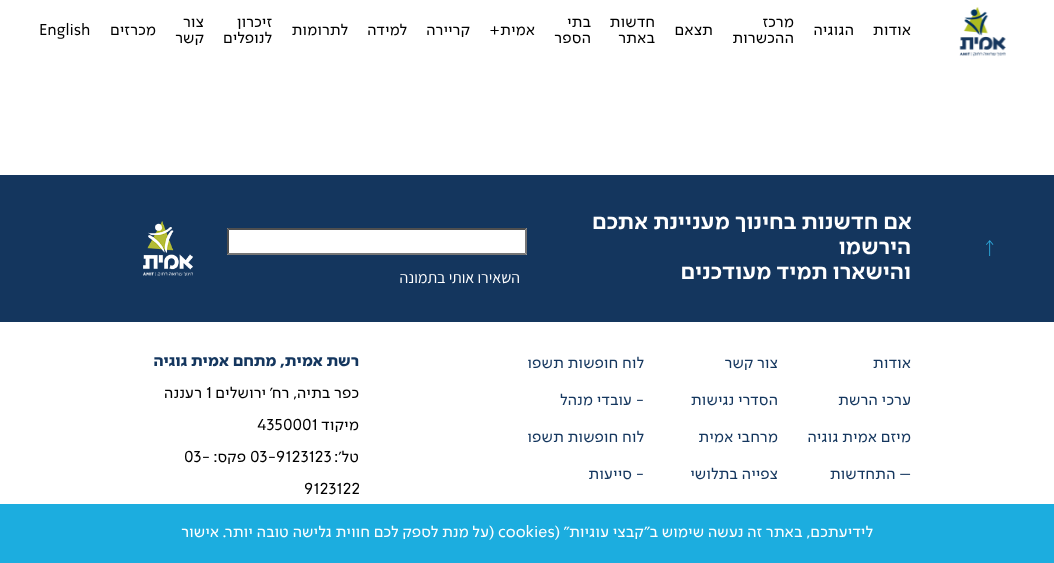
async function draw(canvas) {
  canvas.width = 1054;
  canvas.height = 563;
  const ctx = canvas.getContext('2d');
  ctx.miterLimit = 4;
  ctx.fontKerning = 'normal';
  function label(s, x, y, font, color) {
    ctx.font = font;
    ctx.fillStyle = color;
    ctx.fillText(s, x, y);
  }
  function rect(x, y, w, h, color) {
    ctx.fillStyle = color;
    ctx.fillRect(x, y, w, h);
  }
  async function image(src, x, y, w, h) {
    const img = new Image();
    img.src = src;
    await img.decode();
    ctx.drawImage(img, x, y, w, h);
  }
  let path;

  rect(0, 0, 1054, 563, '#fff');
  await image('assets/img1.png', 959, 7, 47, 50);
  ctx.direction = 'rtl';
  label('אודות', 911, 35, '16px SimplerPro', '#000');
  label('הגוגיה', 854, 35, '16px SimplerPro', '#000');
  label('מרכז', 794, 27, '16px SimplerPro', '#000');
  label('ההכשרות', 794, 43, '16px SimplerPro', '#000');
  label('תצאם', 713, 35, '16px SimplerPro', '#000');
  label('חדשות', 655, 27, '16px SimplerPro', '#000');
  label('באתר', 655, 43, '16px SimplerPro', '#000');
  label('בתי', 591, 27, '16px SimplerPro', '#000');
  label('הספר', 591, 43, '16px SimplerPro', '#000');
  label('אמית+', 535, 35, '16px SimplerPro', '#000');
  label('קריירה', 470, 35, '16px SimplerPro', '#000');
  label('למידה', 407, 35, '16px SimplerPro', '#000');
  label('לתרומות', 348, 35, '16px SimplerPro', '#000');
  label('זיכרון', 272, 27, '16px SimplerPro', '#000');
  label('לנופלים', 272, 43, '16px SimplerPro', '#000');
  label('צור', 204, 27, '16px SimplerPro', '#000');
  label('קשר', 204, 43, '16px SimplerPro', '#000');
  label('מכרזים', 156, 35, '16px SimplerPro', '#000');
  ctx.direction = 'ltr';
  label('English', 39, 35, '16px SimplerPro', '#000');
  rect(0, 175, 1054, 147, '#14365e');
  await image('assets/img2.png', 986, 240, 8, 16);
  ctx.direction = 'rtl';
  label('אם חדשנות בחינוך מעניינת אתכם', 912, 229, 'bold 22.75px SimplerPro', '#fff');
  label('הירשמו', 911, 254, 'bold 22.75px SimplerPro', '#fff');
  label('והישארו תמיד מעודכנים', 911, 279, 'bold 22.75px SimplerPro', '#fff');
  await image('assets/img3.png', 143, 221, 50, 55);
  rect(227, 228, 300, 27, '#fff');
  ctx.fillStyle = '#4f4f4f';
  path = new Path2D('M227 228H527L525 230H229Z');
  ctx.fill(path);
  ctx.fillStyle = '#767676';
  path = new Path2D('M527 228V255L525 253V230Z');
  ctx.fill(path);
  path = new Path2D('M527 255H227L229 253H525Z');
  ctx.fill(path);
  ctx.fillStyle = '#4f4f4f';
  path = new Path2D('M227 255V228L229 230V253Z');
  ctx.fill(path);
  label('השאירו אותי בתמונה', 520, 283, '16px Assistant', '#fff');
  label('אודות', 911, 368, '16px SimplerPro', '#14365e');
  label('צור קשר', 778, 368, '16px SimplerPro', '#14365e');
  label('לוח חופשות תשפו', 644, 368, '16px SimplerPro', '#14365e');
  label('- עובדי מנהל', 644, 405, '16px SimplerPro', '#14365e');
  label('ערכי הרשת', 911, 405, '16px SimplerPro', '#14365e');
  label('הסדרי נגישות', 778, 405, '16px SimplerPro', '#14365e');
  label('מיזם אמית גוגיה', 911, 442, '16px SimplerPro', '#14365e');
  label('– התחדשות', 911, 479, '16px SimplerPro', '#14365e');
  label('מרחבי אמית', 778, 442, '16px SimplerPro', '#14365e');
  label('לוח חופשות תשפו', 644, 442, '16px SimplerPro', '#14365e');
  label('- סייעות', 644, 479, '16px SimplerPro', '#14365e');
  label('צפייה בתלושי', 778, 479, '16px SimplerPro', '#14365e');
  label('רשת אמית, מתחם אמית גוגיה', 359, 366, '900 16px SimplerPro', '#14365e');
  label('כפר בתיה, רח\' ירושלים', 359, 398, '16px SimplerPro', '#000');
  ctx.direction = 'ltr';
  label('1', 206, 398, '16px SimplerPro', '#000');
  ctx.direction = 'rtl';
  label('רעננה', 202, 398, '16px SimplerPro', '#000');
  label('מיקוד', 359, 430, '16px SimplerPro', '#000');
  ctx.direction = 'ltr';
  label('4350001', 257, 430, '16px SimplerPro', '#000');
  ctx.direction = 'rtl';
  label('טל\':', 359, 462, '16px SimplerPro', '#000');
  ctx.direction = 'ltr';
  label('03-9123123', 250, 462, '16px SimplerPro', '#000');
  ctx.direction = 'rtl';
  label('פקס:', 246, 462, '16px SimplerPro', '#000');
  ctx.direction = 'ltr';
  label('03-', 184, 462, '16px SimplerPro', '#000');
  label('9123122', 304, 494, '16px SimplerPro', '#000');
  rect(0, 504, 1054, 59, '#1caddf');
  ctx.direction = 'rtl';
  label('לידיעתכם, באתר זה נעשה שימוש ב"קבצי עוגיות" (', 873, 537, '16px SimplerPro', '#fff');
  ctx.direction = 'ltr';
  label(') cookies', 489, 537, '16px SimplerPro', '#fff');
  ctx.direction = 'rtl';
  label('על מנת לספק לכם חווית גלישה טובה יותר.', 489, 537, '16px SimplerPro', '#fff');
  label('אישור', 219, 537, '16px SimplerPro', '#fff');
}

draw(document.querySelector('canvas'));
